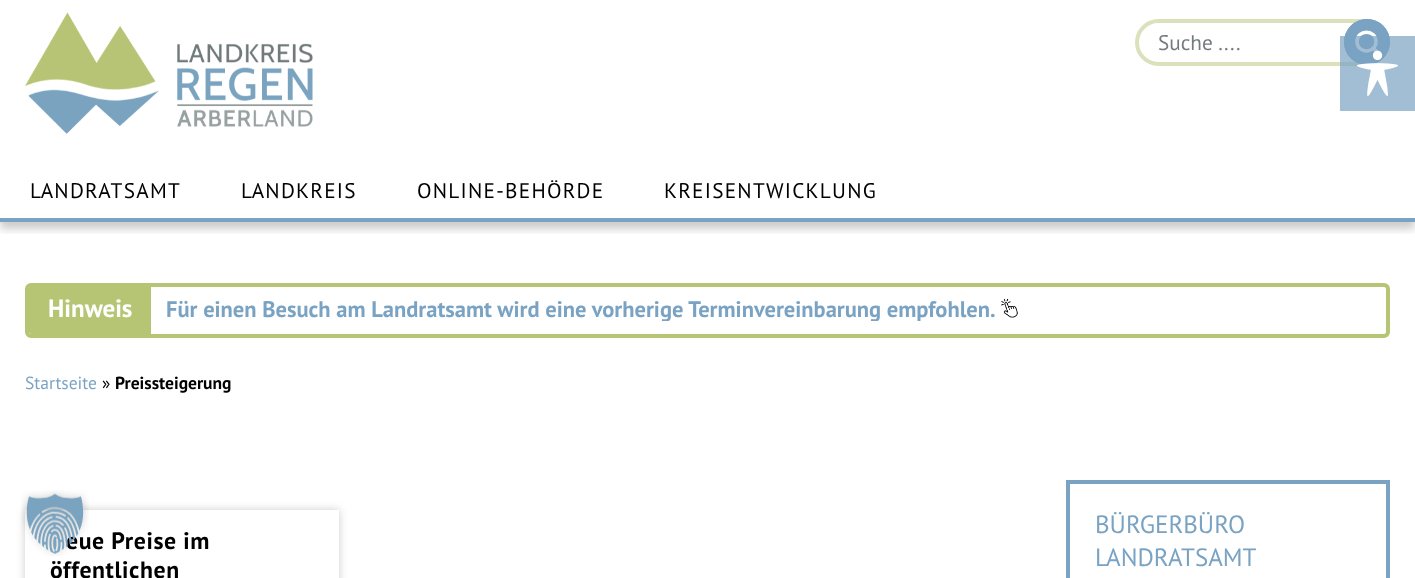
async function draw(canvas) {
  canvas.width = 1415;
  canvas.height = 578;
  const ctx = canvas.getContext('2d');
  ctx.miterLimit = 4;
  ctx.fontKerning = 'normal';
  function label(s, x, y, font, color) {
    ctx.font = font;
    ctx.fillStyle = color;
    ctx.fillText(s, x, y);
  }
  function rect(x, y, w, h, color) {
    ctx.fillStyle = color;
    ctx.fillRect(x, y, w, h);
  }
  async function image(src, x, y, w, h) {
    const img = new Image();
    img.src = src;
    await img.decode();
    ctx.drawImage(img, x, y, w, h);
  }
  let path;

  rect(0, 0, 1415, 578, '#fff');
  ctx.save();
  ctx.beginPath();
  ctx.rect(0, 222, 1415, 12);
  ctx.clip();
  ctx.fillStyle = '#00000033';
  ctx.filter = 'blur(4px)';
  ctx.beginPath();
  ctx.rect(0, 141, 1415, 88);
  ctx.fill();
  ctx.filter = 'none';
  ctx.restore();
  await image('assets/img1.png', 25, 12, 288, 122);
  ctx.beginPath();
  ctx.roundRect(1137, 21, 250, 43, 21.5);
  ctx.strokeStyle = '#dbe2bb';
  ctx.lineWidth = 4;
  ctx.stroke();
  label('Suche ....', 1158, 50, '21.25px PT Sans', '#737b7e');
  ctx.fillStyle = '#7aa3c3';
  ctx.beginPath();
  ctx.arc(1367, 42, 23, 0, 2 * Math.PI);
  ctx.fill();
  path = new Path2D('M1376 41.5C1376 54 1357 54 1357 41.5C1357 29 1376 29 1376 41.5ZM1378 53L1373 48');
  ctx.strokeStyle = '#fff';
  ctx.lineWidth = 3.5;
  ctx.lineCap = 'round';
  ctx.lineJoin = 'round';
  ctx.stroke(path);
  ctx.beginPath();
  ctx.arc(1367, 42, 20.5, 0, 2 * Math.PI);
  ctx.strokeStyle = '#7aa3c3';
  ctx.lineWidth = 5;
  ctx.stroke();
  rect(0, 218, 1415, 4, '#7aa3c3');
  ctx.letterSpacing = '1.25px';
  label('LANDRATSAMT', 30, 198, '21.25px PT Sans', '#000');
  label('LANDKREIS', 241, 198, '21.25px PT Sans', '#000');
  label('ONLINE-BEHÖRDE', 417, 198, '21.25px PT Sans', '#000');
  label('KREISENTWICKLUNG', 664, 198, '21.25px PT Sans', '#000');
  ctx.beginPath();
  ctx.roundRect(27, 285, 1361, 51, 4);
  ctx.strokeStyle = '#b6c574';
  ctx.lineWidth = 4;
  ctx.lineJoin = 'miter';
  ctx.stroke();
  ctx.fillStyle = '#b6c574';
  ctx.beginPath();
  ctx.roundRect(29, 286, 122, 48, [2.5, 0, 0, 2.5]);
  ctx.fill();
  ctx.letterSpacing = '0px';
  label('Hinweis', 48, 317, 'bold 25px PT Sans', '#fff');
  ctx.save();
  ctx.beginPath();
  ctx.rect(166, 299, 1195, 22);
  ctx.clip();
  label('Für einen Besuch am Landratsamt wird eine vorherige Terminvereinbarung empfohlen.', 166, 317, 'bold 22.5px PT Sans', '#7aa3c3');
  ctx.restore();
  await image('assets/img2.png', 1001, 298, 17, 20);
  label('Startseite', 25, 389, '17.5px PT Sans', '#7aa3c3');
  label('»', 102, 389, '17.5px PT Sans', '#000');
  label('Preissteigerung', 115, 389, 'bold 17.5px PT Sans', '#000');
  ctx.save();
  path = new Path2D('M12 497H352V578H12ZM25 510H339V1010H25Z');
  ctx.clip(path, 'evenodd');
  ctx.fillStyle = '#00000033';
  ctx.filter = 'blur(4px)';
  ctx.beginPath();
  ctx.rect(25, 510, 314, 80);
  ctx.fill();
  ctx.filter = 'none';
  ctx.restore();
  ctx.letterSpacing = '0.6px';
  label('eue Preise im', 66, 549, 'bold 23.75px PT Sans', '#000');
  label('öffentlichen', 50, 578, 'bold 23.75px PT Sans', '#000');
  ctx.strokeStyle = '#7aa3c3';
  ctx.strokeRect(1068, 482, 320, 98);
  ctx.letterSpacing = '0px';
  label('BÜRGERBÜRO', 1095, 533, '25px PT Sans', '#7aa3c3');
  label('LANDRATSAMT', 1095, 566, '25px PT Sans', '#7aa3c3');
  rect(1340, 36, 75, 75, '#7aa3c3b3');
  await image('assets/img3.png', 1357, 50, 41, 46);
  await image('assets/img4.png', 21, 490, 68, 66);
}

draw(document.querySelector('canvas'));
